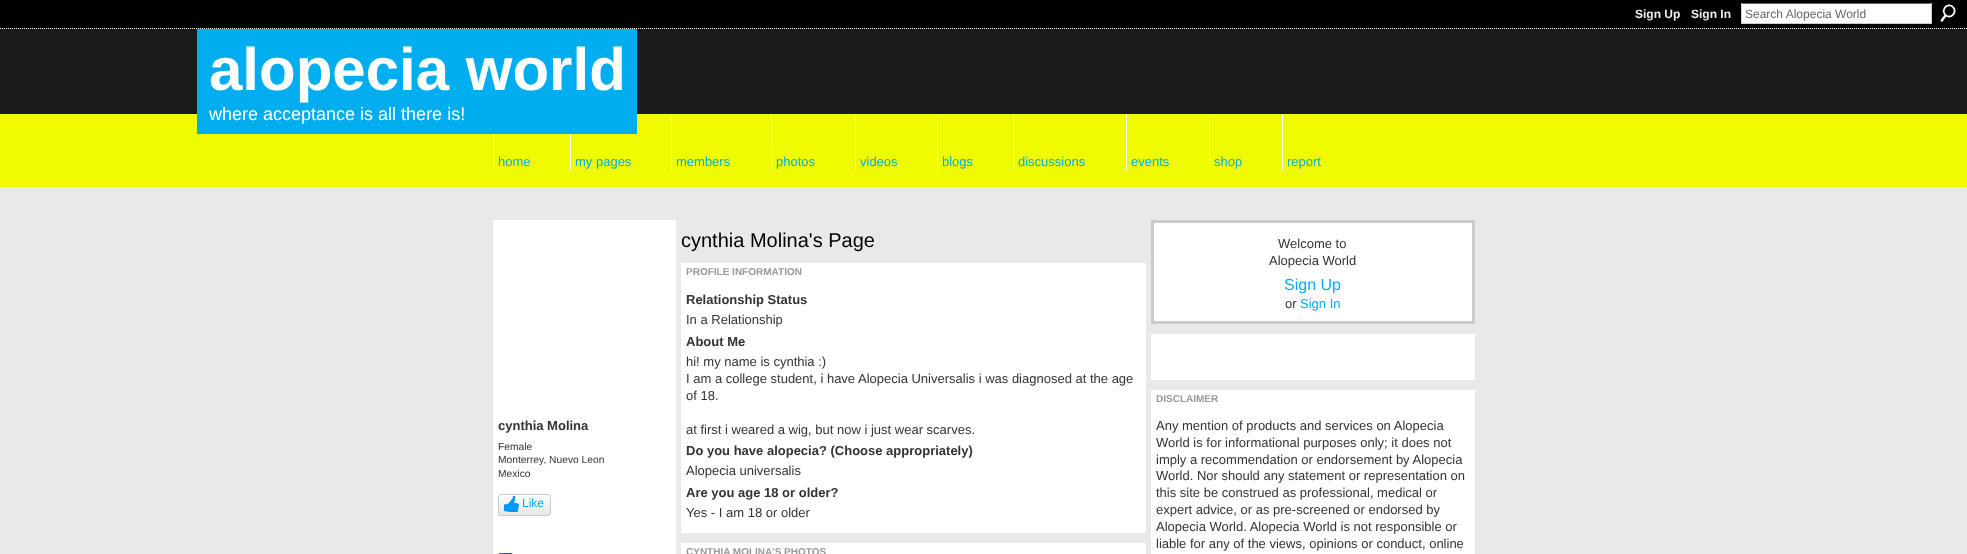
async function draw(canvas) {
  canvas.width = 1967;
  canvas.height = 554;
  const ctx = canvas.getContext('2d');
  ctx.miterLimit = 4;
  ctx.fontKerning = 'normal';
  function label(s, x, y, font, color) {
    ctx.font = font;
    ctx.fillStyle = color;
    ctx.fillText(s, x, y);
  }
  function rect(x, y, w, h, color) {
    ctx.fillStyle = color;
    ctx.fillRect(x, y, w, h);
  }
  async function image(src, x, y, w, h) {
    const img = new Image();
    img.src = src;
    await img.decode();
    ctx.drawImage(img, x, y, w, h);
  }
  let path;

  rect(0, 0, 1967, 554, '#1b1b1b');
  rect(0, 0, 1967, 28, '#000');
  label('Sign Up', 1635, 18, 'bold 12px Liberation Sans', '#eee');
  label('Sign In', 1691, 18, 'bold 12px Liberation Sans', '#eee');
  rect(1742, 4, 189, 19, '#fff');
  rect(1741, 3, 191, 1, '#666');
  rect(1931, 3, 1, 21, '#ccc');
  rect(1741, 23, 191, 1, '#ccc');
  rect(1741, 3, 1, 21, '#ccc');
  label('Search Alopecia World', 1745, 18, '12px Liberation Sans', '#666');
  await image('assets/img1.png', 1940, 4, 16, 18);
  path = new Path2D('M0 28.5H1967');
  ctx.strokeStyle = '#fff';
  ctx.setLineDash([1, 1]);
  ctx.stroke(path);
  rect(0, 114, 1967, 73, '#f0fb00');
  rect(197, 29, 440, 105, '#00aeef');
  label('alopecia world', 209, 90, 'bold 60px Liberation Sans', '#fff');
  label('where acceptance is all there is!', 209, 120, '18px Liberation Sans', '#fff');
  rect(493, 134, 1, 37, '#fff');
  label('home', 498, 166, '13px Liberation Sans', '#00aeef');
  rect(570, 134, 1, 37, '#fff');
  label('my pages', 575, 166, '13px Liberation Sans', '#00aeef');
  rect(671, 114, 1, 57, '#fff');
  label('members', 676, 166, '13px Liberation Sans', '#00aeef');
  rect(771, 114, 1, 57, '#fff');
  label('photos', 776, 166, '13px Liberation Sans', '#00aeef');
  rect(855, 114, 1, 57, '#fff');
  label('videos', 860, 166, '13px Liberation Sans', '#00aeef');
  rect(937, 114, 1, 57, '#fff');
  label('blogs', 942, 166, '13px Liberation Sans', '#00aeef');
  rect(1013, 114, 1, 57, '#fff');
  label('discussions', 1018, 166, '13px Liberation Sans', '#00aeef');
  rect(1126, 114, 1, 57, '#fff');
  label('events', 1131, 166, '13px Liberation Sans', '#00aeef');
  rect(1209, 114, 1, 57, '#fff');
  label('shop', 1214, 166, '13px Liberation Sans', '#00aeef');
  rect(1282, 114, 1, 57, '#fff');
  label('report', 1287, 166, '13px Liberation Sans', '#00aeef');
  rect(0, 187, 1967, 367, '#e9e9e9');
  rect(493, 220, 183, 334, '#fff');
  label('cynthia Molina', 498, 430, 'bold 13px Liberation Sans', '#333');
  label('Female', 498, 450, '10.25px Liberation Sans', '#333');
  label('Monterrey, Nuevo Leon', 498, 463, '10.25px Liberation Sans', '#333');
  label('Mexico', 498, 477, '10.25px Liberation Sans', '#333');
  await image('assets/img2.png', 498, 497, 53, 19);
  ctx.beginPath();
  ctx.roundRect(498.5, 494.5, 52, 21, 2.5);
  ctx.strokeStyle = '#cbcbcb';
  ctx.setLineDash([]);
  ctx.stroke();
  await image('assets/img3.png', 504, 496, 15, 16);
  label('Like', 522, 507, '12px Liberation Sans', '#00aeef');
  await image('assets/img4.png', 499, 553, 14, 1);
  label('cynthia Molina\'s Page', 681, 247, '20px Liberation Sans', '#000');
  rect(681, 263, 465, 270, '#fff');
  label('PROFILE INFORMATION', 686, 275, 'bold 10px Liberation Sans', '#999');
  label('Relationship Status', 686, 304, 'bold 13px Liberation Sans', '#333');
  label('In a Relationship', 686, 324, '13px Liberation Sans', '#333');
  label('About Me', 686, 346, 'bold 13px Liberation Sans', '#333');
  label('hi! my name is cynthia :)', 686, 366, '13px Liberation Sans', '#333');
  label('I am a college student, i have Alopecia Universalis i was diagnosed at the age', 686, 383, '13px Liberation Sans', '#333');
  label('of 18.', 686, 400, '13px Liberation Sans', '#333');
  label('at first i weared a wig, but now i just wear scarves.', 686, 434, '13px Liberation Sans', '#333');
  label('Do you have alopecia? (Choose appropriately)', 686, 455, 'bold 13px Liberation Sans', '#333');
  label('Alopecia universalis', 686, 475, '13px Liberation Sans', '#333');
  label('Are you age 18 or older?', 686, 497, 'bold 13px Liberation Sans', '#333');
  label('Yes - I am 18 or older', 686, 517, '13px Liberation Sans', '#333');
  rect(681, 543, 465, 11, '#fff');
  label('CYNTHIA MOLINA\'S PHOTOS', 686, 555, 'bold 10px Liberation Sans', '#999');
  ctx.fillStyle = '#fff';
  ctx.beginPath();
  ctx.rect(1152.5, 221.5, 321, 101);
  ctx.fill();
  ctx.lineWidth = 3;
  ctx.stroke();
  label('Welcome to', 1278, 248, '13px Liberation Sans', '#333');
  label('Alopecia World', 1269, 265, '13px Liberation Sans', '#333');
  label('Sign Up', 1284, 290, '16px Liberation Sans', '#00aeef');
  label('or', 1285, 308, '13px Liberation Sans', '#333');
  label('Sign In', 1300, 308, '13px Liberation Sans', '#00aeef');
  rect(1151, 334, 324, 46, '#fff');
  rect(1151, 390, 324, 164, '#fff');
  label('DISCLAIMER', 1156, 402, 'bold 10px Liberation Sans', '#999');
  label('Any mention of products and services on Alopecia', 1156, 430, '13px Liberation Sans', '#333');
  label('World is for informational purposes only; it does not', 1156, 447, '13px Liberation Sans', '#333');
  label('imply a recommendation or endorsement by Alopecia', 1156, 464, '13px Liberation Sans', '#333');
  label('World. Nor should any statement or representation on', 1156, 480, '13px Liberation Sans', '#333');
  label('this site be construed as professional, medical or', 1156, 497, '13px Liberation Sans', '#333');
  label('expert advice, or as pre-screened or endorsed by', 1156, 514, '13px Liberation Sans', '#333');
  label('Alopecia World. Alopecia World is not responsible or', 1156, 531, '13px Liberation Sans', '#333');
  label('liable for any of the views, opinions or conduct, online', 1156, 548, '13px Liberation Sans', '#333');
}

draw(document.querySelector('canvas'));
